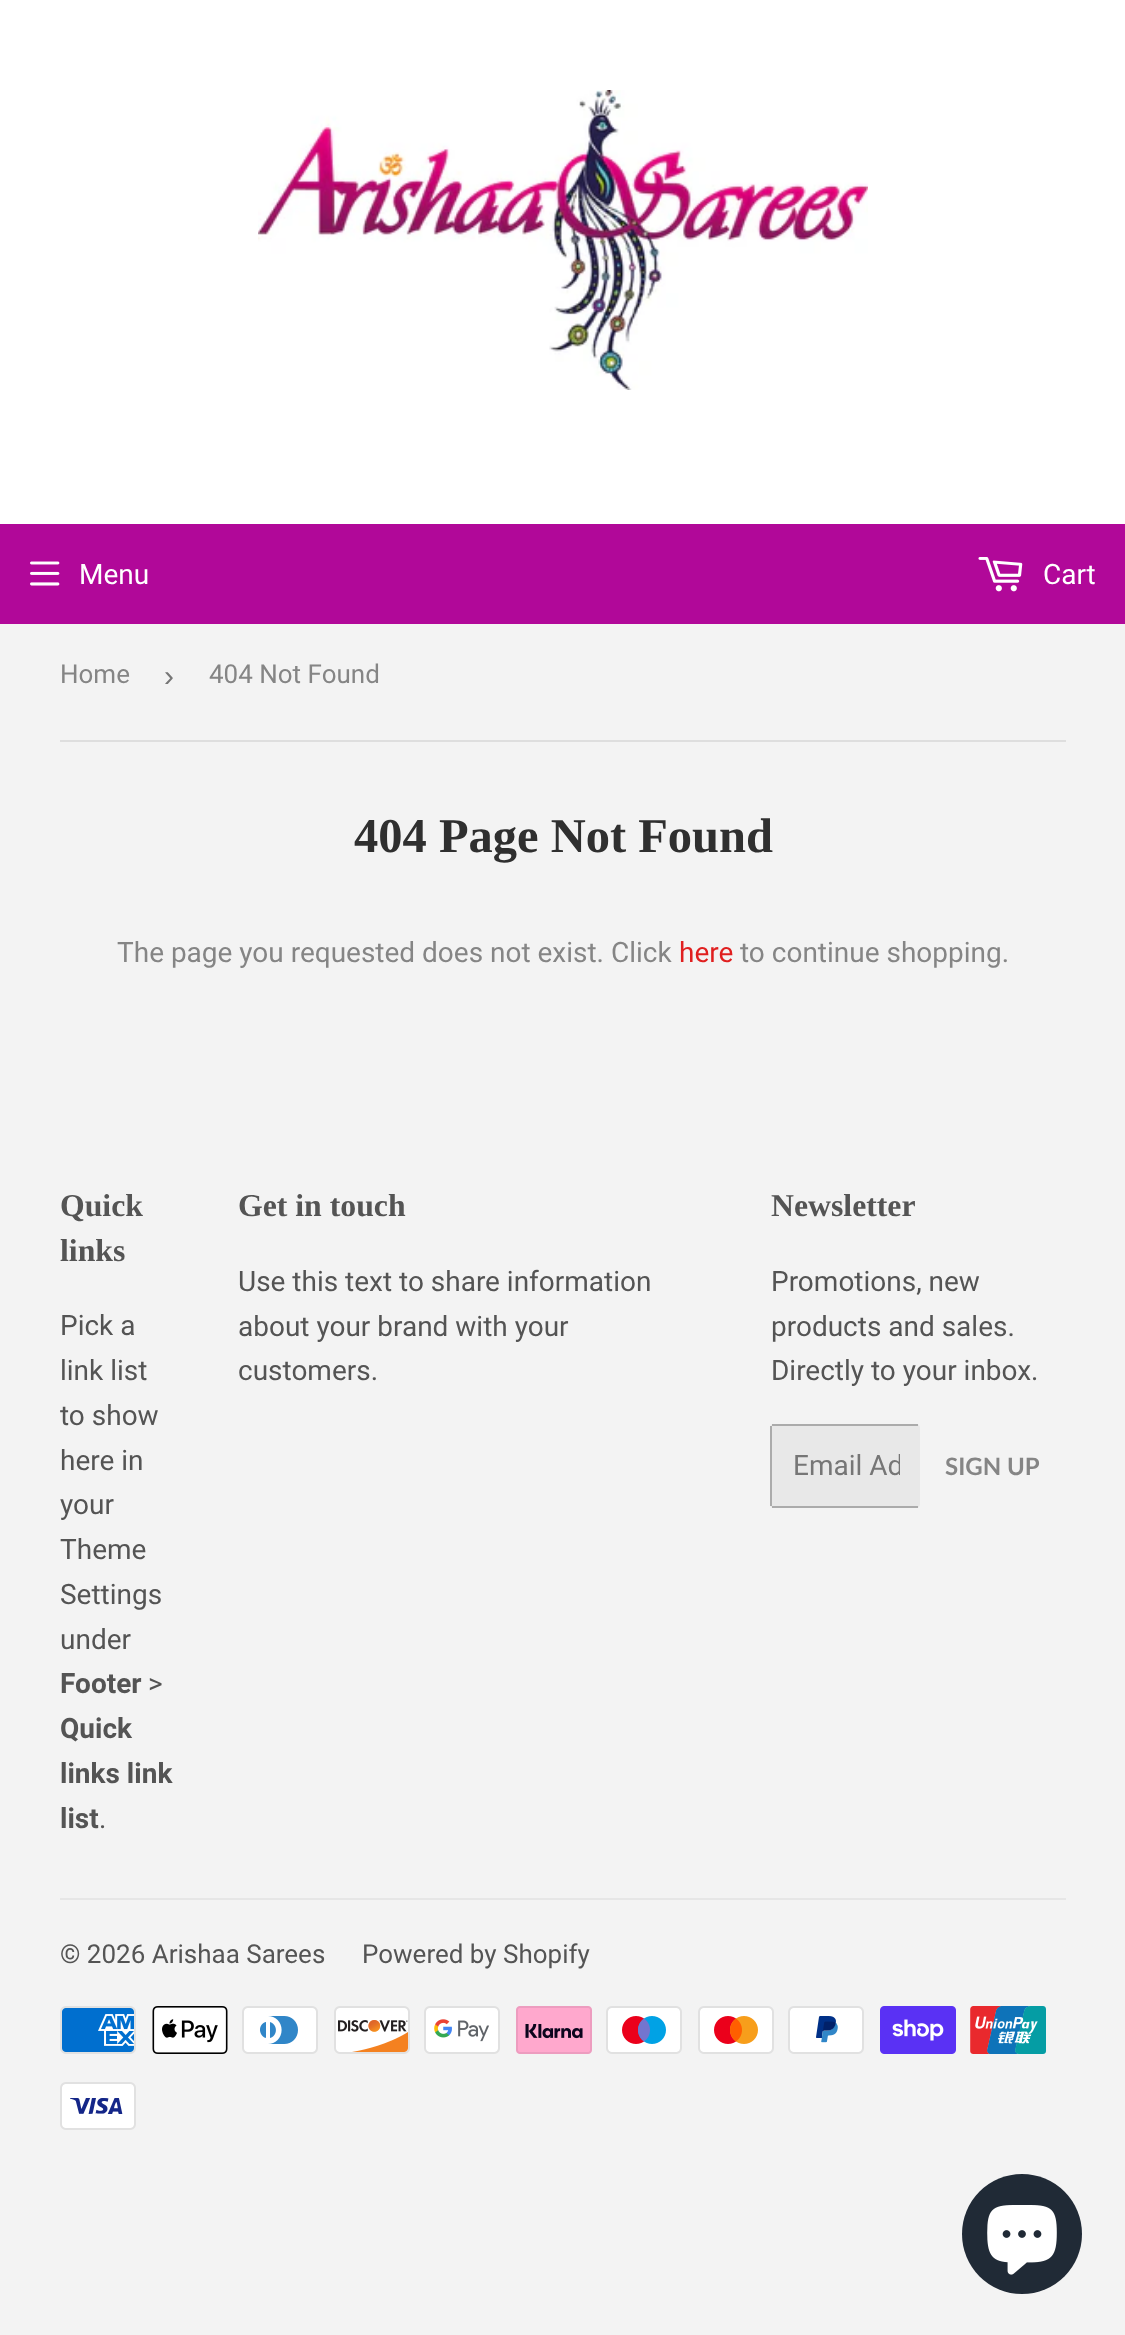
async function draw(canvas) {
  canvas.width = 1125;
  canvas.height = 2335;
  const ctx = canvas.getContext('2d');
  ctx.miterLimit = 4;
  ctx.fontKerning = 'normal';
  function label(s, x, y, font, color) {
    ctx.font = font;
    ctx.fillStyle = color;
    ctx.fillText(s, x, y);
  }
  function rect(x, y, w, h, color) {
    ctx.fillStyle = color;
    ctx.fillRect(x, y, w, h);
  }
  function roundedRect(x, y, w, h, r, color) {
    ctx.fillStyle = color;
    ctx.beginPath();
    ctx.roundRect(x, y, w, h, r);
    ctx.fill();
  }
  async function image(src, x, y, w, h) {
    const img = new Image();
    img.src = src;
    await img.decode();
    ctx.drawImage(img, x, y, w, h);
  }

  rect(0, 0, 1125, 2335, '#f3f3f3');
  rect(0, 0, 1125, 524, '#fff');
  await image('assets/img1.png', 258, 90, 610, 300);
  rect(0, 524, 1125, 100, '#b10899');
  await image('assets/img2.png', 30, 561, 30, 25);
  label('Menu', 79, 584, '28px Roboto', '#fff');
  await image('assets/img3.png', 978, 557, 45, 35);
  label('Cart', 1043, 584, '28px Roboto', '#fff');
  rect(60, 740, 1006, 2, '#dedede');
  label('Home', 60, 683, '26px Roboto', '#858585');
  label('›', 164, 686, '30px Liberation Sans', '#767676');
  label('404 Not Found', 209, 683, '26px Roboto', '#858585');
  label('404 Page Not Found', 354, 852, 'bold 48.5px Liberation Serif', '#2f2f2f');
  label('The page you requested does not exist. Click', 117, 962, '28px Roboto', '#858585');
  label('here', 679, 962, '28px Roboto', '#e01f1f');
  label('to continue shopping.', 740, 962, '28px Roboto', '#858585');
  label('Quick', 60, 1216, 'bold 31.75px Liberation Serif', '#545454');
  label('links', 60, 1261, 'bold 31.75px Liberation Serif', '#545454');
  label('Pick a', 60, 1335, '28px Roboto', '#545454');
  label('link list', 60, 1380, '28px Roboto', '#545454');
  label('to show', 60, 1425, '28px Roboto', '#545454');
  label('here in', 60, 1470, '28px Roboto', '#545454');
  label('your', 60, 1514, '28px Roboto', '#545454');
  label('Theme', 60, 1559, '28px Roboto', '#545454');
  label('Settings', 60, 1604, '28px Roboto', '#545454');
  label('under', 60, 1649, '28px Roboto', '#545454');
  label('Footer', 60, 1693, 'bold 28px Roboto', '#545454');
  label('>', 148, 1693, '28px Roboto', '#545454');
  label('Quick', 60, 1738, 'bold 28px Roboto', '#545454');
  label('links link', 60, 1783, 'bold 28px Roboto', '#545454');
  label('list', 60, 1828, 'bold 28px Roboto', '#545454');
  label('.', 99, 1828, '28px Roboto', '#545454');
  label('Get in touch', 238, 1216, 'bold 31.75px Liberation Serif', '#545454');
  label('Use this text to share information', 238, 1291, '28px Roboto', '#545454');
  label('about your brand with your', 238, 1336, '28px Roboto', '#545454');
  label('customers.', 238, 1380, '28px Roboto', '#545454');
  label('Newsletter', 771, 1216, 'bold 31.75px Liberation Serif', '#545454');
  label('Promotions, new', 771, 1291, '28px Roboto', '#545454');
  label('products and sales.', 771, 1336, '28px Roboto', '#545454');
  label('Directly to your inbox.', 771, 1380, '28px Roboto', '#545454');
  roundedRect(770, 1424, 150, 84, 4, '#e8e8e8');
  rect(772, 1424, 146, 2, '#ababab');
  rect(772, 1506, 146, 2, '#ababab');
  rect(770, 1426, 2, 80, '#ababab');
  ctx.save();
  ctx.beginPath();
  ctx.rect(792, 1450, 108, 32);
  ctx.clip();
  label('Email Ad', 793, 1475, '28px Roboto', '#767676');
  ctx.restore();
  label('SIGN UP', 945, 1475, 'bold 24px Lato', '#858585');
  rect(60, 1898, 1006, 2, '#e6e6e6');
  label('© 2026 Arishaa Sarees', 60, 1963, '26px Roboto', '#545454');
  label('Powered by Shopify', 362, 1963, '26px Roboto', '#545454');
  await image('assets/img4.png', 60, 2006, 76, 48);
  await image('assets/img5.png', 152, 2006, 76, 48);
  await image('assets/img6.png', 242, 2006, 76, 48);
  await image('assets/img7.png', 334, 2006, 76, 48);
  await image('assets/img8.png', 424, 2006, 76, 48);
  await image('assets/img9.png', 516, 2006, 76, 48);
  await image('assets/img10.png', 606, 2006, 76, 48);
  await image('assets/img11.png', 698, 2006, 76, 48);
  await image('assets/img12.png', 788, 2006, 76, 48);
  await image('assets/img13.png', 880, 2006, 76, 48);
  await image('assets/img14.png', 970, 2006, 76, 48);
  await image('assets/img15.png', 60, 2082, 76, 48);
  ctx.fillStyle = '#202a36';
  ctx.beginPath();
  ctx.arc(1022, 2234, 60, 0, 2 * Math.PI);
  ctx.fill();
  await image('assets/img16.png', 987, 2205, 70, 70);
}

draw(document.querySelector('canvas'));
